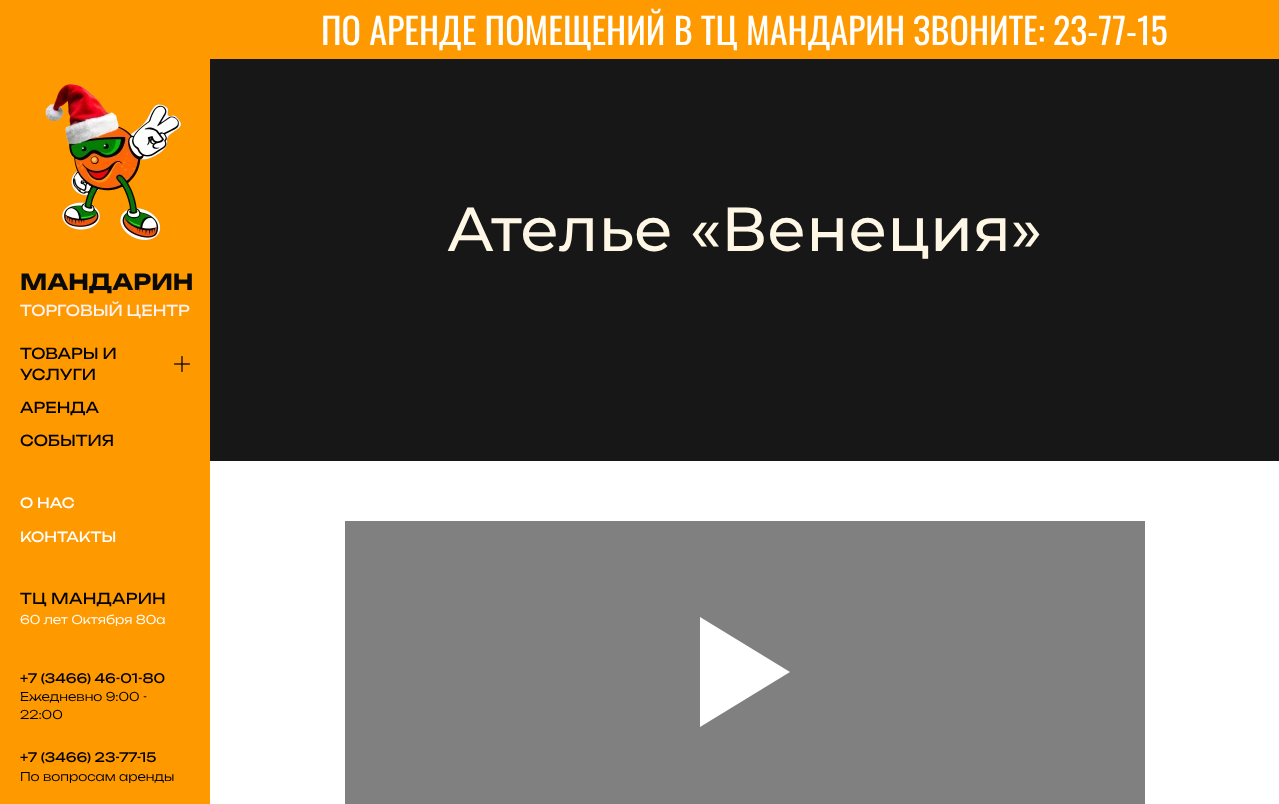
async function draw(canvas) {
  canvas.width = 1279;
  canvas.height = 804;
  const ctx = canvas.getContext('2d');
  ctx.miterLimit = 4;
  ctx.fontKerning = 'normal';
  function label(s, x, y, font, color) {
    ctx.font = font;
    ctx.fillStyle = color;
    ctx.fillText(s, x, y);
  }
  function rect(x, y, w, h, color) {
    ctx.fillStyle = color;
    ctx.fillRect(x, y, w, h);
  }
  async function image(src, x, y, w, h) {
    const img = new Image();
    img.src = src;
    await img.decode();
    ctx.drawImage(img, x, y, w, h);
  }
  let path;

  rect(0, 0, 1279, 804, '#fff');
  rect(210, 0, 1069, 59, '#f90');
  label('ПО АРЕНДЕ ПОМЕЩЕНИЙ В ТЦ МАНДАРИН ЗВОНИТЕ: 23-77-15', 321, 45, '36px Oswald', '#fff');
  rect(0, 0, 210, 804, '#f90');
  await image('assets/img1.png', 45, 84, 136, 156);
  label('МАНДАРИН', 20, 290, 'bold 22px Unbounded', '#0a0a0a');
  label('ТОРГОВЫЙ ЦЕНТР', 20, 316, '15px Unbounded', '#fff2f2');
  label('ТОВАРЫ И', 20, 359, '15px Unbounded', '#000');
  label('УСЛУГИ', 20, 380, '15px Unbounded', '#000');
  await image('assets/img2.png', 174, 356, 16, 16);
  label('АРЕНДА', 20, 413, '15px Unbounded', '#000');
  label('СОБЫТИЯ', 20, 446, '15px Unbounded', '#000');
  label('О НАС', 20, 508, '14px Unbounded', '#fff');
  label('КОНТАКТЫ', 20, 542, '14px Unbounded', '#fff');
  ctx.letterSpacing = '0.25px';
  label('ТЦ МАНДАРИН', 20, 604, '15px Unbounded', '#000');
  ctx.letterSpacing = '0px';
  label('60 лет Октября 80а', 20, 624, '300 12px Unbounded', '#fff');
  label('+7 (3466) 46-01-80', 20, 683, '13px Unbounded', '#000');
  label('Ежедневно 9:00 -', 20, 701, '300 12px Unbounded', '#000');
  label('22:00', 20, 719, '300 12px Unbounded', '#000');
  label('+7 (3466) 23-77-15', 20, 762, '13px Unbounded', '#000');
  label('По вопросам аренды', 20, 781, '300 12px Unbounded', '#000');
  rect(210, 59, 1069, 402, '#171717');
  label('Ателье «Венеция»', 447, 251, '500 62px Montserrat', '#fff7e5');
  rect(345, 521, 800, 283, '#808080');
  ctx.fillStyle = '#fff';
  path = new Path2D('M700 727V617L790 672Z');
  ctx.fill(path);
}

draw(document.querySelector('canvas'));
